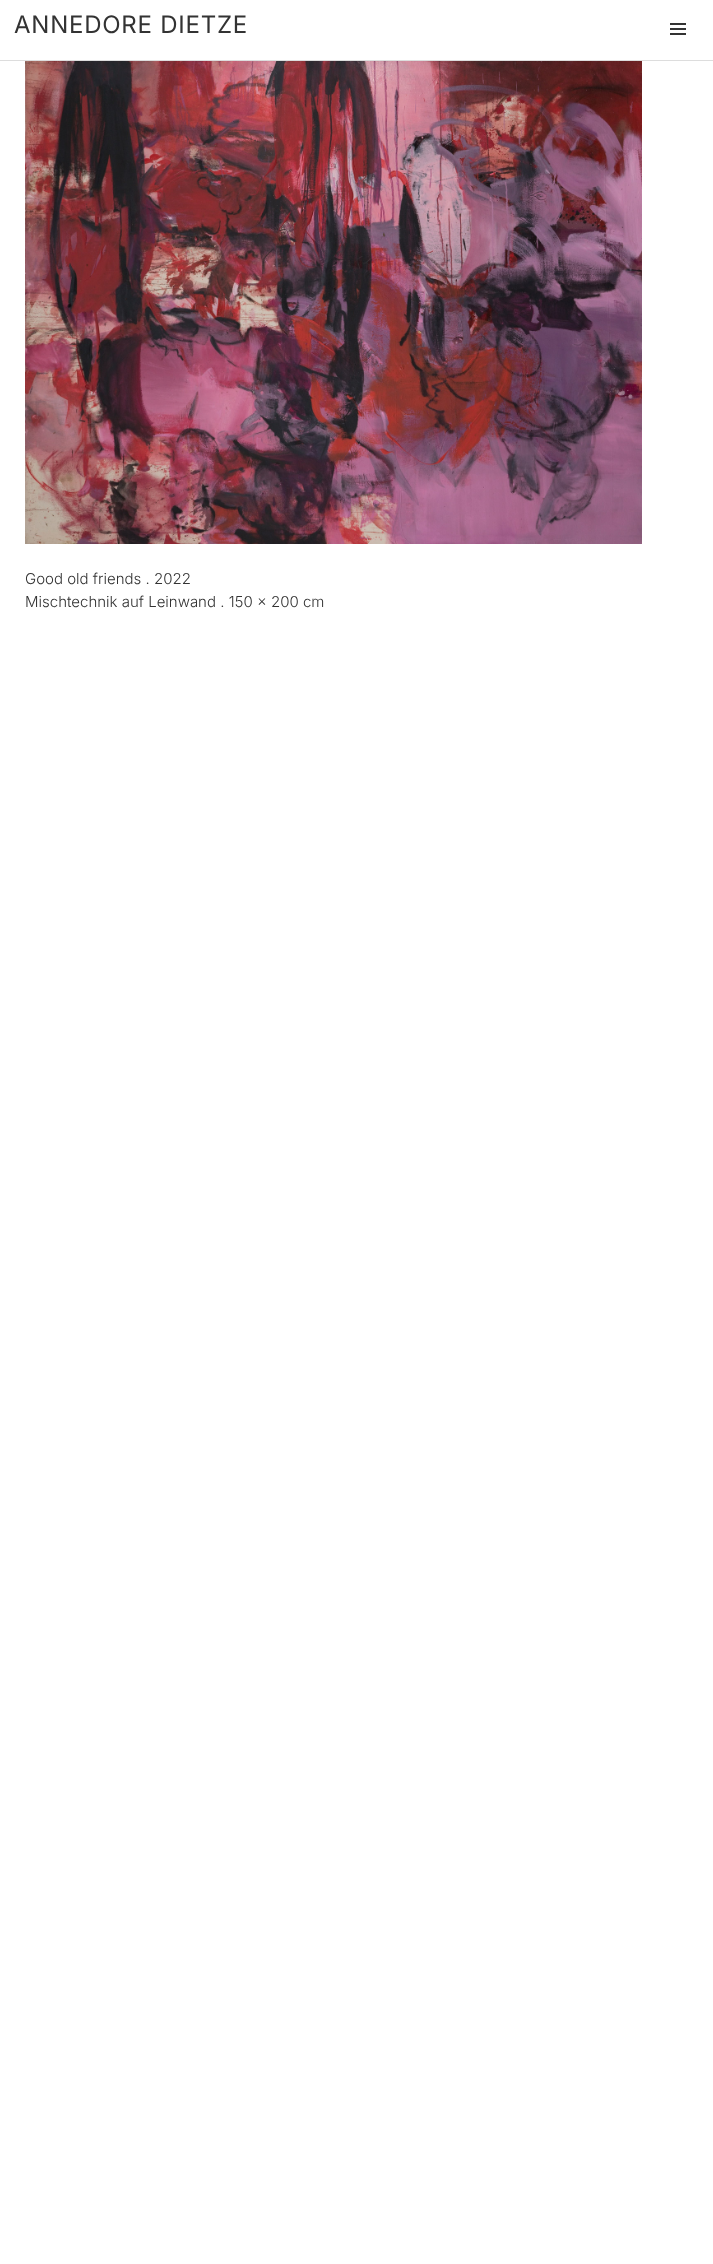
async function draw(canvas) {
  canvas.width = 713;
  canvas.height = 2264;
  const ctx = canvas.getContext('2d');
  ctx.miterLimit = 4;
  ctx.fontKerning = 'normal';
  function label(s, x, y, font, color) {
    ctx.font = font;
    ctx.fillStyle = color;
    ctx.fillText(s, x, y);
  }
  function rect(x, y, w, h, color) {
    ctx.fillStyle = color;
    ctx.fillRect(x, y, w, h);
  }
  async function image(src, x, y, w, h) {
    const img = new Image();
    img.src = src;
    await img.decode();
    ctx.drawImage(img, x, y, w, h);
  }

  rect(0, 0, 713, 2264, '#fff');
  rect(0, 60, 713, 1, '#ddd');
  ctx.letterSpacing = '0.75px';
  label('ANNEDORE DIETZE', 14, 33, '24px Inter', '#333');
  await image('assets/img1.png', 670, 23, 16, 12);
  await image('assets/img2.png', 25, 61, 617, 483);
  ctx.letterSpacing = '0px';
  label('Good old friends . 2022', 25, 584, '300 15px Inter', '#333');
  label('Mischtechnik auf Leinwand . 150 x 200 cm', 25, 607, '300 15px Inter', '#333');
}

draw(document.querySelector('canvas'));
